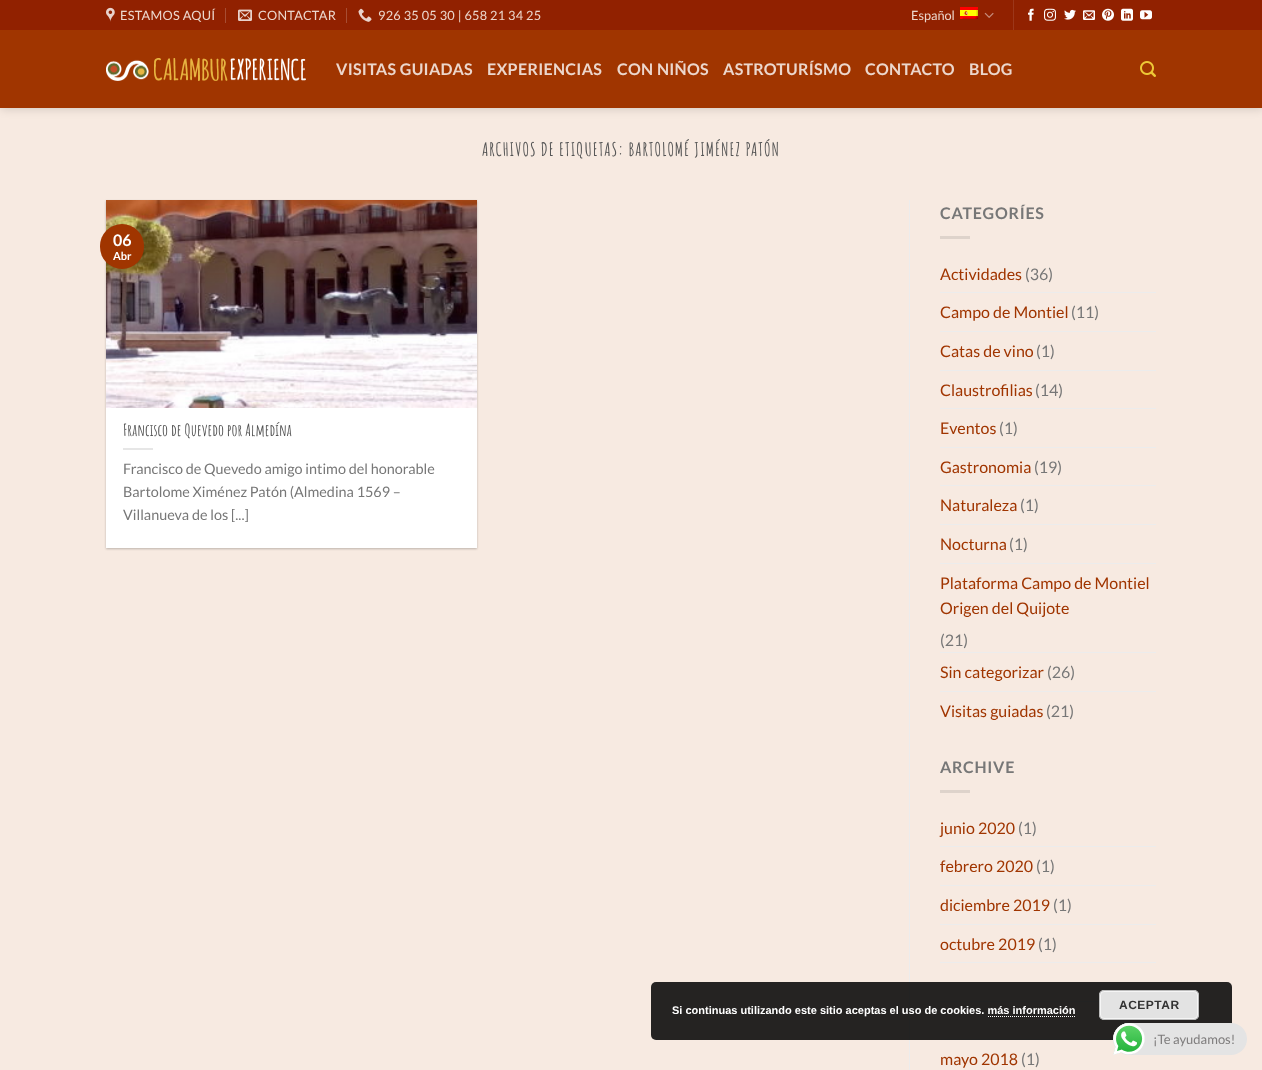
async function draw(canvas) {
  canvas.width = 1262;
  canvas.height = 1070;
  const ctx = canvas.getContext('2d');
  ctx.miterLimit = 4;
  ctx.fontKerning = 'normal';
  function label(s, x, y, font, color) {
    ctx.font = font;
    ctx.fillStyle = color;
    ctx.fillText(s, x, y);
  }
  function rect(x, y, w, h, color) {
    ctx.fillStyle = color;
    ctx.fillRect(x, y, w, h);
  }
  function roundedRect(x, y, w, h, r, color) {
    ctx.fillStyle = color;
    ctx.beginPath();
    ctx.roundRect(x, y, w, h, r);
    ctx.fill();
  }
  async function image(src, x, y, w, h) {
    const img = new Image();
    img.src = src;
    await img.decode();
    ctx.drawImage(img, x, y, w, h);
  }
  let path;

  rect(0, 0, 1262, 1070, '#f7eae1');
  ctx.fillStyle = '#00000026';
  ctx.filter = 'blur(5px)';
  ctx.beginPath();
  ctx.rect(1, 1, 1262, 108);
  ctx.fill();
  ctx.filter = 'none';
  rect(0, 0, 1262, 30, '#912100');
  await image('assets/img1.png', 106, 7, 9, 15);
  ctx.letterSpacing = '0.25px';
  label('ESTAMOS AQUÍ', 120, 20, '12.75px Lato', '#ecd7cc');
  rect(225, 8, 1, 15, '#a74d33');
  await image('assets/img2.png', 238, 9, 14, 12);
  label('CONTACTAR', 258, 20, '12.75px Lato', '#ecd7cc');
  rect(346, 8, 1, 15, '#a74d33');
  await image('assets/img3.png', 358, 8, 14, 14);
  label('926 35 05 30 | 658 21 34 25', 378, 20, '12.75px Lato', '#ecd7cc');
  ctx.letterSpacing = '0px';
  label('Español', 911, 20, '12.75px Lato', '#ecd7cc');
  await image('assets/img4.png', 960, 7, 18, 12);
  await image('assets/img5.png', 984, 12, 10, 6);
  rect(1013, 0, 1, 30, '#9c371a');
  await image('assets/img6.png', 1028, 8, 6, 13);
  await image('assets/img7.png', 1044, 8, 12, 13);
  await image('assets/img8.png', 1064, 9, 12, 11);
  await image('assets/img9.png', 1083, 10, 12, 10);
  await image('assets/img10.png', 1102, 8, 12, 13);
  await image('assets/img11.png', 1121, 8, 12, 13);
  await image('assets/img12.png', 1140, 10, 12, 10);
  rect(0, 30, 1262, 78, '#a03500');
  await image('assets/img13.png', 106, 58, 200, 23);
  ctx.letterSpacing = '0.3px';
  label('VISITAS GUIADAS', 336, 75, 'bold 16px Lato', '#ecd7cc');
  label('EXPERIENCIAS', 487, 75, 'bold 16px Lato', '#ecd7cc');
  label('CON NIÑOS', 617, 75, 'bold 16px Lato', '#ecd7cc');
  label('ASTROTURÍSMO', 723, 75, 'bold 16px Lato', '#ecd7cc');
  label('CONTACTO', 865, 75, 'bold 16px Lato', '#ecd7cc');
  label('BLOG', 969, 75, 'bold 16px Lato', '#ecd7cc');
  await image('assets/img14.png', 1140, 61, 16, 16);
  ctx.letterSpacing = '0.9px';
  label('ARCHIVOS DE ETIQUETAS: BARTOLOMÉ JIMÉNEZ PATÓN', 482, 156, 'bold 18.4px Amatic SC', '#555');
  ctx.fillStyle = '#0000003d';
  ctx.filter = 'blur(1px)';
  ctx.beginPath();
  ctx.rect(106, 201, 371, 348);
  ctx.fill();
  ctx.filter = 'none';
  rect(106, 408, 371, 140, '#fff');
  await image('assets/img15.png', 106, 200, 371, 208);
  roundedRect(100, 224, 44, 45, 22, '#a03500');
  ctx.letterSpacing = '0px';
  label('06', 113, 246, 'bold 16px Lato', '#fff');
  label('Abr', 113, 260, 'bold 11px Lato', '#fff');
  label('Francisco de Quevedo por Almedína', 123, 436, 'bold 16.5px Amatic SC', '#555');
  rect(123, 448, 30, 2, '#e6e6e6');
  label('Francisco de Quevedo amigo intimo del honorable', 123, 474, '14.4px Lato', '#777');
  label('Bartolome Ximénez Patón (Almedina 1569 –', 123, 497, '14.4px Lato', '#777');
  label('Villanueva de los [...]', 123, 520, '14.4px Lato', '#777');
  rect(909, 200, 1, 870, '#ececec');
  ctx.letterSpacing = '0.75px';
  label('CATEGORÍES', 940, 219, 'bold 16px Lato', '#777');
  rect(940, 236, 30, 3, '#ded3cb');
  ctx.letterSpacing = '0px';
  label('Actividades', 940, 280, '16px Lato', '#a03500');
  label('(36)', 1025, 280, '16px Lato', '#777');
  rect(940, 292, 216, 1, '#ececec');
  label('Campo de Montiel', 940, 318, '16px Lato', '#a03500');
  label('(11)', 1071, 318, '16px Lato', '#777');
  rect(940, 331, 216, 1, '#ececec');
  label('Catas de vino', 940, 357, '16px Lato', '#a03500');
  label('(1)', 1036, 357, '16px Lato', '#777');
  rect(940, 370, 216, 1, '#ececec');
  label('Claustrofilias', 940, 396, '16px Lato', '#a03500');
  label('(14)', 1035, 396, '16px Lato', '#777');
  rect(940, 408, 216, 1, '#ececec');
  label('Eventos', 940, 434, '16px Lato', '#a03500');
  label('(1)', 999, 434, '16px Lato', '#777');
  rect(940, 447, 216, 1, '#ececec');
  label('Gastronomia', 940, 473, '16px Lato', '#a03500');
  label('(19)', 1034, 473, '16px Lato', '#777');
  rect(940, 485, 216, 1, '#ececec');
  label('Naturaleza', 940, 511, '16px Lato', '#a03500');
  label('(1)', 1020, 511, '16px Lato', '#777');
  rect(940, 524, 216, 1, '#ececec');
  label('Nocturna', 940, 550, '16px Lato', '#a03500');
  label('(1)', 1009, 550, '16px Lato', '#777');
  rect(940, 563, 216, 1, '#ececec');
  label('Plataforma Campo de Montiel', 940, 589, '16px Lato', '#a03500');
  label('Origen del Quijote', 940, 614, '16px Lato', '#a03500');
  label('(21)', 940, 646, '16px Lato', '#777');
  rect(940, 652, 216, 1, '#ececec');
  label('Sin categorizar', 940, 678, '16px Lato', '#a03500');
  label('(26)', 1047, 678, '16px Lato', '#777');
  rect(940, 691, 216, 1, '#ececec');
  label('Visitas guiadas', 940, 717, '16px Lato', '#a03500');
  label('(21)', 1046, 717, '16px Lato', '#777');
  ctx.letterSpacing = '0.75px';
  label('ARCHIVE', 940, 773, 'bold 16px Lato', '#777');
  rect(940, 790, 30, 3, '#ded3cb');
  ctx.letterSpacing = '0px';
  label('junio 2020', 940, 834, '16px Lato', '#a03500');
  label('(1)', 1018, 834, '16px Lato', '#777');
  rect(940, 846, 216, 1, '#ececec');
  label('febrero 2020', 940, 872, '16px Lato', '#a03500');
  label('(1)', 1036, 872, '16px Lato', '#777');
  rect(940, 885, 216, 1, '#ececec');
  label('diciembre 2019', 940, 911, '16px Lato', '#a03500');
  label('(1)', 1053, 911, '16px Lato', '#777');
  rect(940, 924, 216, 1, '#ececec');
  label('octubre 2019', 940, 950, '16px Lato', '#a03500');
  label('(1)', 1038, 950, '16px Lato', '#777');
  rect(940, 962, 216, 1, '#ececec');
  rect(940, 1001, 159, 1, '#ececec');
  rect(940, 1039, 174, 1, '#ececec');
  label('mayo 2018', 940, 1065, '16px Lato', '#a03500');
  label('(1)', 1021, 1065, '16px Lato', '#777');
  roundedRect(651, 982, 581, 58, 5, '#000000d9');
  label('Si continuas utilizando este sitio aceptas el uso de cookies. más información', 672, 1014, 'bold 11px Liberation Sans', '#fff');
  roundedRect(1099, 990, 100, 30, 5, '#e3e3e3');
  ctx.beginPath();
  ctx.roundRect(1100.5, 991.5, 97, 27, 3.5);
  ctx.strokeStyle = '#f6f6f6';
  ctx.stroke();
  ctx.beginPath();
  ctx.roundRect(1099.5, 990.5, 99, 29, 4.5);
  ctx.strokeStyle = '#bbb';
  ctx.stroke();
  ctx.letterSpacing = '0.5px';
  label('ACEPTAR', 1119, 1009, 'bold 12px Liberation Sans', '#333');
  path = new Path2D('M988 1016.5H1076');
  ctx.strokeStyle = '#fff';
  ctx.setLineDash([1, 1]);
  ctx.stroke(path);
  roundedRect(1113, 1023, 134, 32, 16, '#e4e4e4');
  await image('assets/img16.png', 1113, 1023, 32, 32);
  ctx.letterSpacing = '0px';
  label('¡Te ayudamos!', 1153, 1044, '13px Lato', '#7f7d7d');
}

draw(document.querySelector('canvas'));
